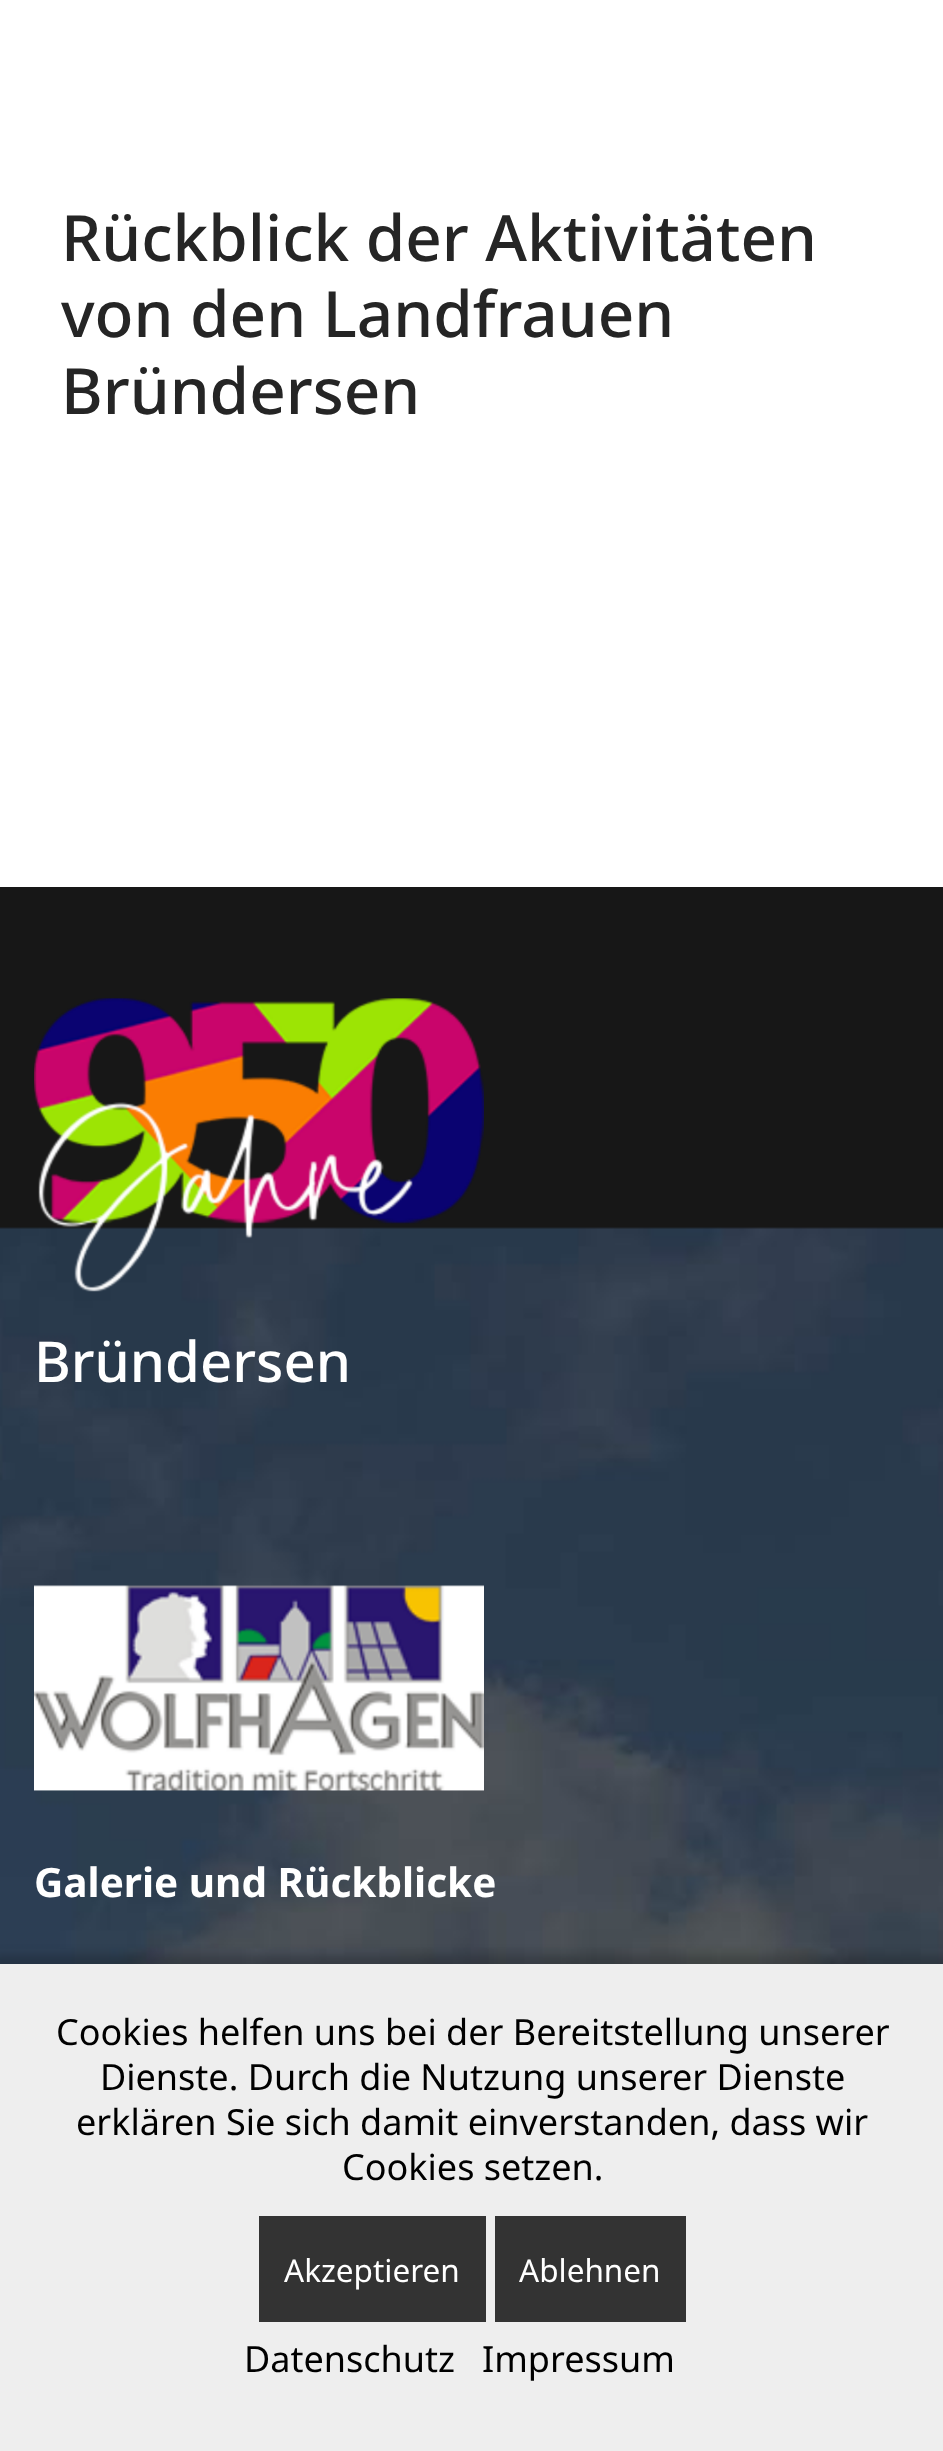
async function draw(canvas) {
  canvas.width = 943;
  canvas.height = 2451;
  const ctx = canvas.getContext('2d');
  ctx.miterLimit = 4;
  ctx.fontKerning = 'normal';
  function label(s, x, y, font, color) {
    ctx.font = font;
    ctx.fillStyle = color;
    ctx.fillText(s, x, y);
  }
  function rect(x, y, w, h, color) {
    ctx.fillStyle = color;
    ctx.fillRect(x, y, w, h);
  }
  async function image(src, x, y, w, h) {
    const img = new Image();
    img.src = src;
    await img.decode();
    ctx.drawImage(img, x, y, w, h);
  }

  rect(0, 0, 943, 2451, '#fff');
  label('Rückblick der Aktivitäten', 61, 261, '500 63.75px Noto Sans', '#252525');
  label('von den Landfrauen', 61, 337, '500 63.75px Noto Sans', '#252525');
  label('Bründersen', 61, 414, '500 63.75px Noto Sans', '#252525');
  rect(0, 887, 943, 342, '#171717');
  await image('assets/img1.png', 0, 1227, 943, 737);
  await image('assets/img2.png', 34, 998, 450, 294);
  label('Bründersen', 34, 1382, '500 56.25px Noto Sans', '#fff');
  await image('assets/img3.png', 34, 1585, 450, 206);
  label('Galerie und Rückblicke', 34, 1897, 'bold 40.5px Noto Sans', '#fff');
  ctx.fillStyle = '#00000036';
  ctx.filter = 'blur(5.5px)';
  ctx.beginPath();
  ctx.rect(-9, 1955, 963, 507);
  ctx.fill();
  ctx.filter = 'none';
  rect(0, 1964, 943, 487, '#eee');
  label('Cookies helfen uns bei der Bereitstellung unserer', 56, 2045, '36px Noto Sans', '#000');
  label('Dienste. Durch die Nutzung unserer Dienste', 100, 2090, '36px Noto Sans', '#000');
  label('erklären Sie sich damit einverstanden, dass wir', 76, 2135, '36px Noto Sans', '#000');
  label('Cookies setzen.', 342, 2180, '36px Noto Sans', '#000');
  rect(259, 2216, 227, 106, '#333');
  label('Akzeptieren', 284, 2282, '31.5px Noto Sans', '#fff');
  rect(495, 2216, 191, 106, '#333');
  label('Ablehnen', 519, 2282, '31.5px Noto Sans', '#fff');
  label('Datenschutz', 244, 2372, '36px Noto Sans', '#000');
  label('Impressum', 482, 2372, '36px Noto Sans', '#000');
}

draw(document.querySelector('canvas'));
